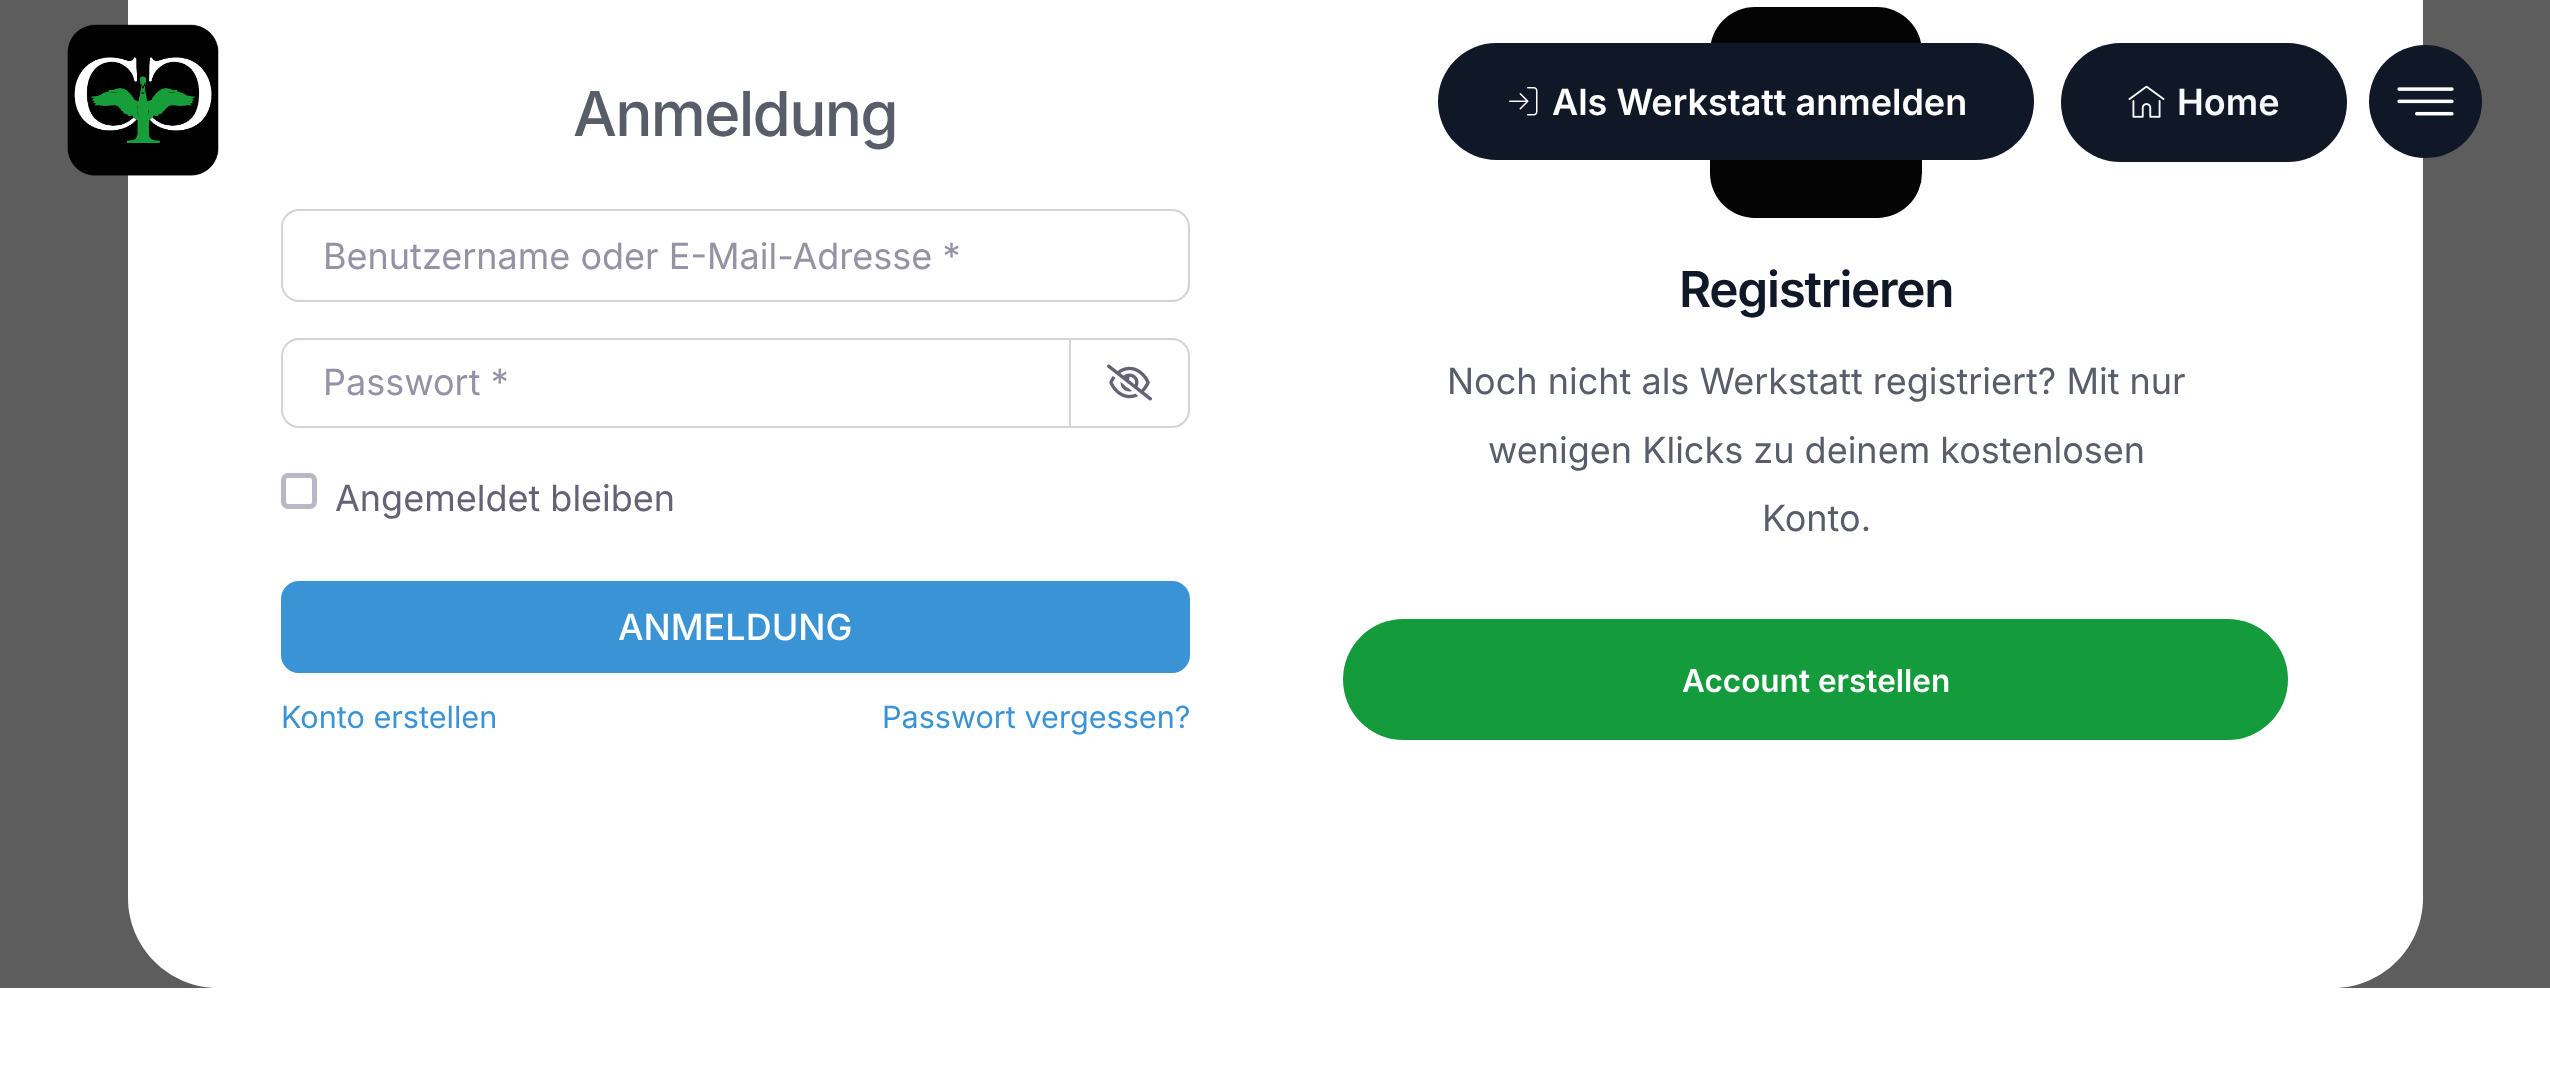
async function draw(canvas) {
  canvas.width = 2550;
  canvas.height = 1081;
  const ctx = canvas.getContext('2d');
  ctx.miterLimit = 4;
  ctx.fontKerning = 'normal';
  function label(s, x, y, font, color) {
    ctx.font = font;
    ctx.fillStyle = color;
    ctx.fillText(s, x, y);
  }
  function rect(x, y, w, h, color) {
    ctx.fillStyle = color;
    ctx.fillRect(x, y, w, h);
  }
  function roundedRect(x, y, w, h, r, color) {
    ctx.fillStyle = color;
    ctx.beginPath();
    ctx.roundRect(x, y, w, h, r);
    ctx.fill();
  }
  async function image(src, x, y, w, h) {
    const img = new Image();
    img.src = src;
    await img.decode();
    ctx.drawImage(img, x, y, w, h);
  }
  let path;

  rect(0, 0, 2550, 1081, '#fff');
  rect(0, 0, 2550, 988, '#5d5d5d');
  ctx.fillStyle = '#fff';
  path = new Path2D('M218-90H2423V898C2423 947.5 2382.5 988 2333 988H218C168.5 988 128 947.5 128 898V0C128-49.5 168.5-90 218-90Z');
  ctx.fill(path);
  await image('assets/img1.png', 67, 24, 152, 152);
  roundedRect(1710, 7, 212, 211, 45, '#050404');
  roundedRect(1438, 43, 596, 117, 58.5, '#101828');
  await image('assets/img2.png', 1509, 87, 29, 29);
  label('Als Werkstatt anmelden', 1552, 115, '600 36px Inter', '#fff');
  roundedRect(2061, 43, 286, 119, 59.5, '#101828');
  await image('assets/img3.png', 2128, 85, 37, 33);
  label('Home', 2177, 115, '600 36px Inter', '#f5f9fc');
  ctx.fillStyle = '#101828';
  ctx.beginPath();
  ctx.arc(2425.5, 101.5, 56.5, 0, 2 * Math.PI);
  ctx.fill();
  await image('assets/img4.png', 2397, 87, 57, 29);
  ctx.letterSpacing = '-1.75px';
  label('Anmeldung', 573, 136, '500 62px Inter', '#585d69');
  ctx.beginPath();
  ctx.roundRect(282, 210, 907, 91, 17);
  ctx.strokeStyle = '#d5d2dc';
  ctx.lineWidth = 2;
  ctx.stroke();
  ctx.letterSpacing = '0px';
  label('Benutzername oder E-Mail-Adresse *', 323, 269, '36px Inter', '#9691a4');
  ctx.beginPath();
  ctx.roundRect(1070, 339, 119, 88, [0, 17, 17, 0]);
  ctx.stroke();
  ctx.beginPath();
  ctx.roundRect(282, 339, 788, 88, [17, 0, 0, 17]);
  ctx.stroke();
  label('Passwort *', 323, 395, '36px Inter', '#9691a4');
  await image('assets/img5.png', 1107, 364, 45, 37);
  ctx.beginPath();
  ctx.roundRect(283.5, 475.5, 31, 31, 4.5);
  ctx.strokeStyle = '#bbb7c5';
  ctx.lineWidth = 5;
  ctx.stroke();
  label('Angemeldet bleiben', 335, 511, '36px Inter', '#666276');
  ctx.fillStyle = '#3993d5';
  ctx.beginPath();
  ctx.roundRect(282, 582, 907, 90, 17);
  ctx.fill();
  ctx.strokeStyle = '#3993d5';
  ctx.lineWidth = 2;
  ctx.stroke();
  label('ANMELDUNG', 618, 640, '500 36px Inter', '#fff');
  label('Konto erstellen', 281, 728, '30.6px Inter', '#3993d5');
  label('Passwort vergessen?', 882, 728, '30.6px Inter', '#3993d5');
  ctx.letterSpacing = '-1.3px';
  label('Registrieren', 1679, 307, '600 49.5px Inter', '#101828');
  ctx.letterSpacing = '0px';
  label('Noch nicht als Werkstatt registriert? Mit nur', 1447, 394, '36px Inter', '#585d69');
  label('wenigen Klicks zu deinem kostenlosen', 1488, 463, '36px Inter', '#585d69');
  label('Konto.', 1762, 531, '36px Inter', '#585d69');
  roundedRect(1343, 619, 945, 121, 60.5, '#149b3b');
  label('Account erstellen', 1682, 692, '600 31.5px Inter', '#fff');
}

draw(document.querySelector('canvas'));
